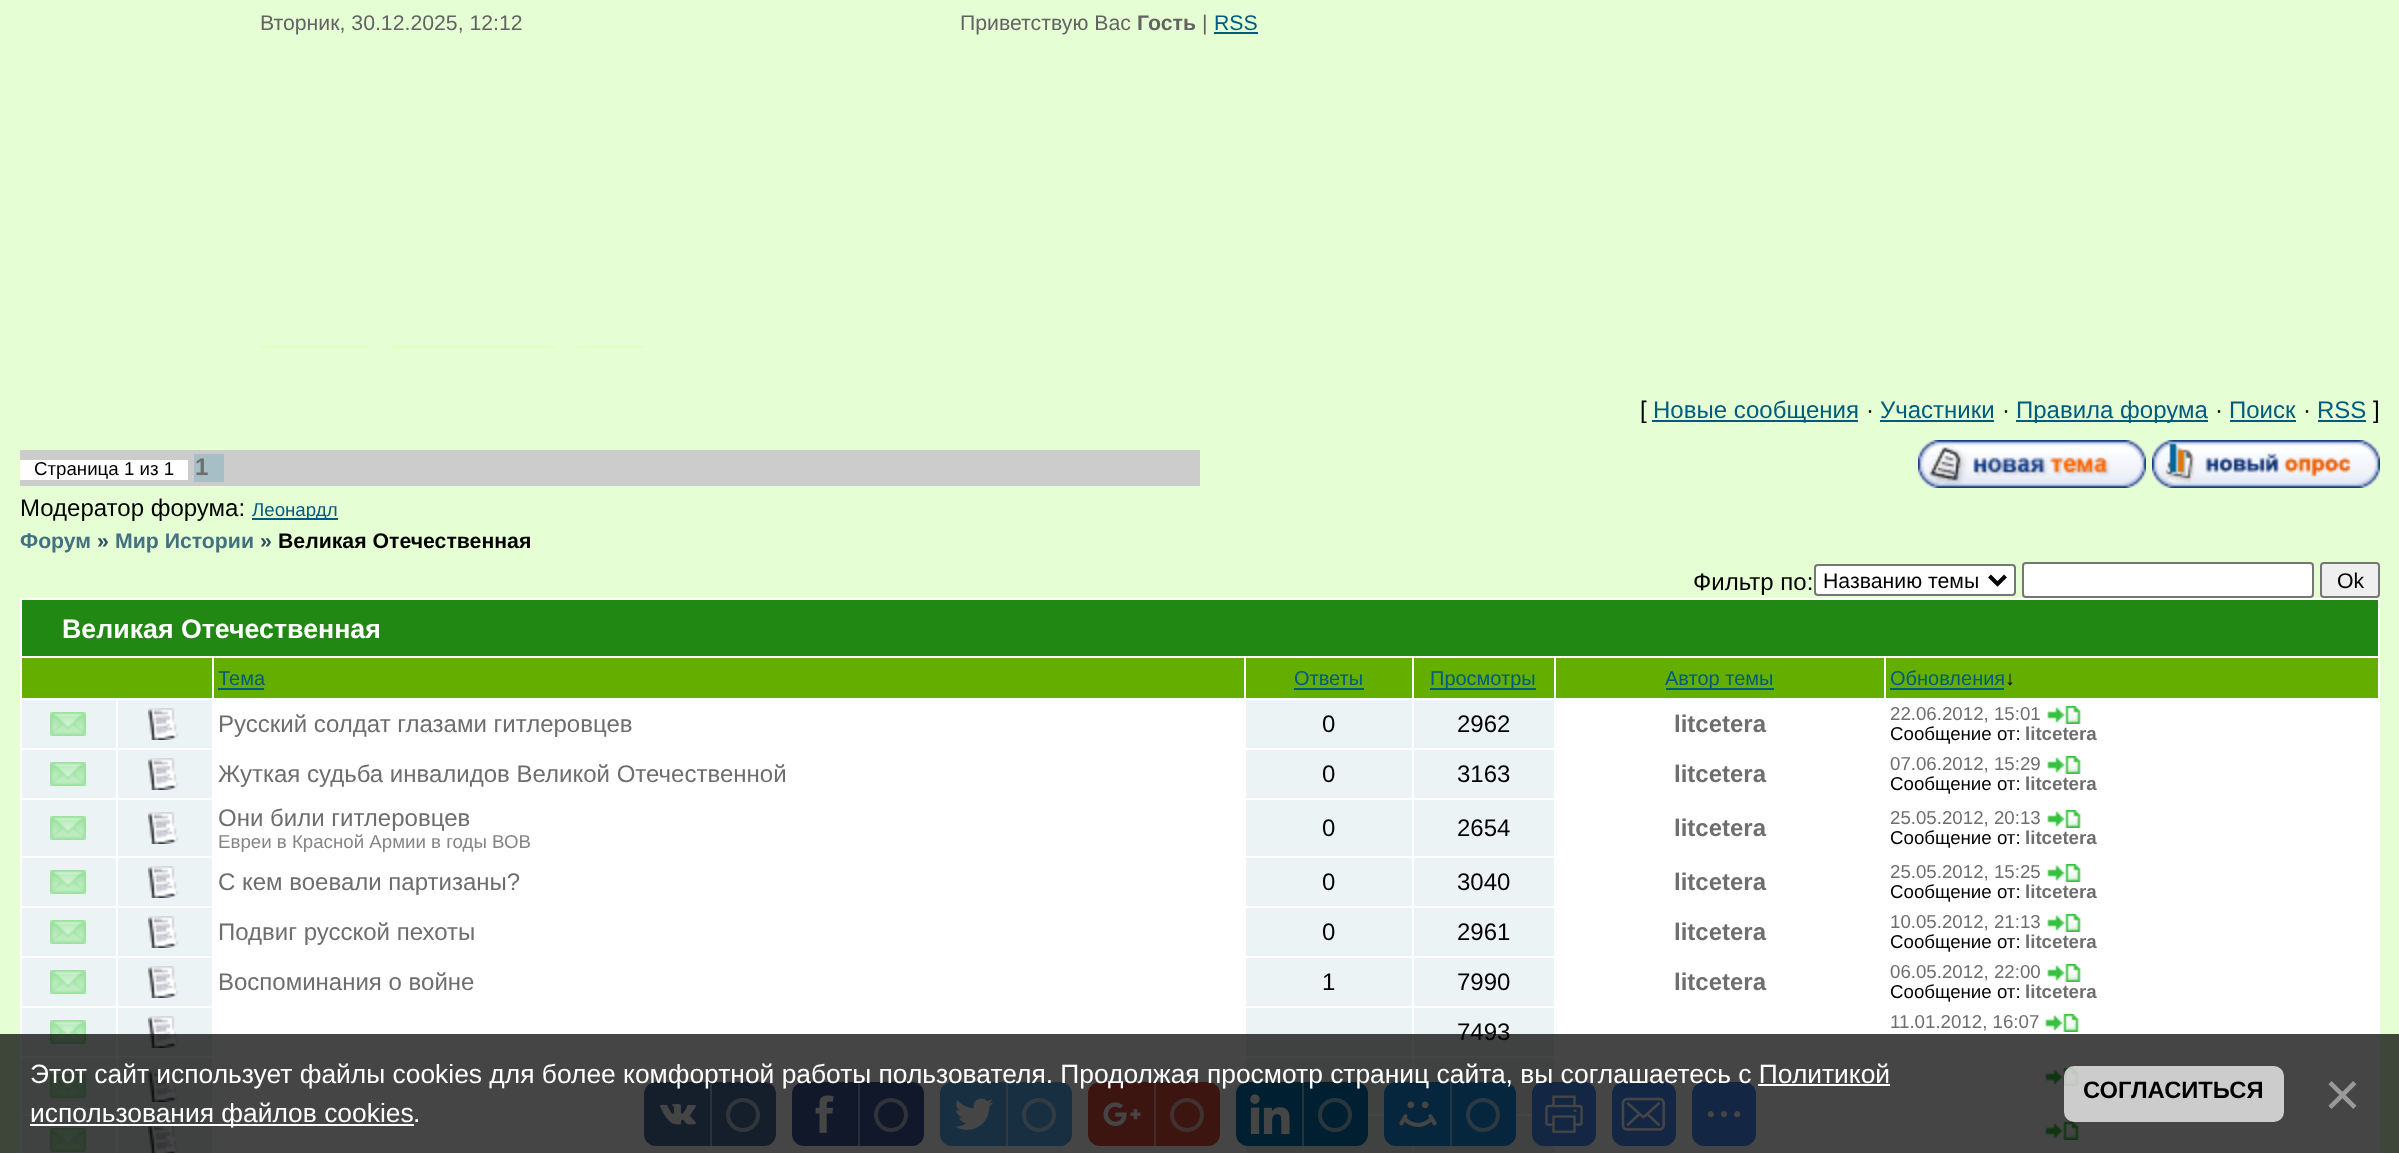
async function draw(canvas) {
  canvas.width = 2399;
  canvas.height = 1153;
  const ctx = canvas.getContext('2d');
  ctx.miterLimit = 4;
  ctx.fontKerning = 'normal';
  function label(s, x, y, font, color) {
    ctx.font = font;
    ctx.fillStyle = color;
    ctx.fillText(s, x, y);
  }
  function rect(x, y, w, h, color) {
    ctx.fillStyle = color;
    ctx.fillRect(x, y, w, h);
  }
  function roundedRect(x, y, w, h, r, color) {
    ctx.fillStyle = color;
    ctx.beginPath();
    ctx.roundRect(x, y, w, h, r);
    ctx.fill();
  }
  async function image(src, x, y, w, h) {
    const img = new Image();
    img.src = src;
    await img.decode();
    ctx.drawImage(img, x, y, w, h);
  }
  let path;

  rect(0, 0, 2399, 1153, '#e6fed4');
  label('Вторник, 30.12.2025, 12:12', 260, 30, '21.25px Liberation Sans', '#636363');
  label('Приветствую Вас', 960, 30, '21.25px Liberation Sans', '#636363');
  label('Гость', 1137, 30, 'bold 21.25px Liberation Sans', '#636363');
  label('|', 1202, 30, '21.25px Liberation Sans', '#636363');
  label('RSS', 1214, 30, '21.25px Liberation Sans', '#005b7f');
  rect(1214, 32, 44, 2, '#005b7f');
  rect(260, 346, 108, 2, '#e4ffbd');
  rect(390, 346, 166, 2, '#e4ffbd');
  rect(578, 346, 66, 2, '#e4ffbd');
  label('[', 1640, 418, '24px Liberation Sans', '#000');
  rect(1652, 420, 206, 2, '#005b7f');
  label('Новые сообщения', 1653, 418, '24px Liberation Sans', '#005b7f');
  label('·', 1866, 418, '24px Liberation Sans', '#000');
  label('Участники', 1880, 418, '24px Liberation Sans', '#005b7f');
  rect(1880, 420, 114, 2, '#005b7f');
  label('·', 2002, 418, '24px Liberation Sans', '#000');
  rect(2016, 420, 192, 2, '#005b7f');
  label('Правила форума', 2016, 418, '24px Liberation Sans', '#005b7f');
  label('·', 2215, 418, '24px Liberation Sans', '#000');
  label('Поиск', 2229, 418, '24px Liberation Sans', '#005b7f');
  rect(2230, 420, 66, 2, '#005b7f');
  label('·', 2303, 418, '24px Liberation Sans', '#000');
  label('RSS', 2317, 418, '24px Liberation Sans', '#005b7f');
  rect(2318, 420, 48, 2, '#005b7f');
  label(']', 2373, 418, '24px Liberation Sans', '#000');
  rect(20, 450, 1180, 36, '#ccc');
  rect(20, 460, 168, 20, '#fff');
  label('Страница 1 из 1', 34, 475, '18.7px Liberation Sans', '#000');
  rect(194, 454, 30, 28, '#a6bec6');
  label('1', 195, 475, 'bold 24px Liberation Sans', '#6e6e6e');
  await image('assets/img1.png', 1918, 440, 228, 48);
  await image('assets/img2.png', 2152, 440, 228, 48);
  label('Модератор форума:', 20, 516, '24px Liberation Sans', '#000');
  rect(252, 518, 86, 2, '#005b7f');
  label('Леонардл', 252, 516, '18.7px Liberation Sans', '#005b7f');
  label('Форум', 20, 548, 'bold 21.25px Liberation Sans', '#427181');
  label('»', 97, 548, 'bold 21.25px Liberation Sans', '#2f515c');
  label('Мир Истории', 115, 548, 'bold 21.25px Liberation Sans', '#427181');
  label('»', 260, 548, 'bold 21.25px Liberation Sans', '#2f515c');
  label('Великая Отечественная', 278, 548, 'bold 21.25px Liberation Sans', '#000');
  label('Фильтр по:', 1693, 590, '24px Liberation Sans', '#000');
  ctx.fillStyle = '#fff';
  ctx.beginPath();
  ctx.roundRect(1815, 565, 200, 30, 3);
  ctx.fill();
  ctx.strokeStyle = '#767676';
  ctx.lineWidth = 2;
  ctx.stroke();
  path = new Path2D('M1989.5 576L1997.5 584L2005.5 576');
  ctx.strokeStyle = '#000';
  ctx.lineWidth = 4;
  ctx.stroke(path);
  label('Названию темы', 1823, 588, '21.25px Liberation Sans', '#000');
  ctx.fillStyle = '#fff';
  ctx.beginPath();
  ctx.roundRect(2023, 563, 290, 34, 3);
  ctx.fill();
  ctx.strokeStyle = '#767676';
  ctx.lineWidth = 2;
  ctx.stroke();
  ctx.fillStyle = '#efefef';
  ctx.beginPath();
  ctx.roundRect(2321, 563, 58, 34, 3);
  ctx.fill();
  ctx.stroke();
  label('Ok', 2337, 588, '21.25px Liberation Sans', '#000');
  rect(20, 598, 2360, 555, '#fff');
  rect(22, 600, 2356, 56, '#218814');
  label('Великая Отечественная', 62, 638, 'bold 26.75px Liberation Sans', '#fff');
  rect(22, 658, 190, 40, '#64ae00');
  rect(214, 658, 1030, 40, '#64ae00');
  label('Тема', 218, 685, '20px Liberation Sans', '#005b7f');
  rect(218, 688, 46, 2, '#005b7f');
  rect(1246, 658, 166, 40, '#64ae00');
  label('Ответы', 1294, 685, '20px Liberation Sans', '#005b7f');
  rect(1294, 688, 70, 2, '#005b7f');
  rect(1414, 658, 140, 40, '#64ae00');
  rect(1430, 688, 106, 2, '#005b7f');
  label('Просмотры', 1430, 685, '20px Liberation Sans', '#005b7f');
  rect(1556, 658, 328, 40, '#64ae00');
  rect(1666, 688, 108, 2, '#005b7f');
  label('Автор темы', 1665, 685, '20px Liberation Sans', '#005b7f');
  rect(1886, 658, 492, 40, '#64ae00');
  label('Обновления', 1890, 685, '20px Liberation Sans', '#005b7f');
  rect(1890, 688, 114, 2, '#005b7f');
  label('↓', 2005, 685, '20px Liberation Sans', '#000');
  rect(22, 700, 94, 48, '#ecf3f5');
  await image('assets/img3.png', 50, 712, 36, 24);
  rect(118, 700, 94, 48, '#ecf3f5');
  await image('assets/img4.png', 148, 708, 31, 32);
  label('Русский солдат глазами гитлеровцев', 218, 732, '24px Liberation Sans', '#6e6e6e');
  rect(1246, 700, 166, 48, '#ecf3f5');
  label('0', 1322, 732, '24px Liberation Sans', '#000');
  rect(1414, 700, 140, 48, '#ecf3f5');
  label('2962', 1457, 732, '24px Liberation Sans', '#000');
  label('litcetera', 1674, 732, 'bold 24px Liberation Sans', '#6e6e6e');
  label('22.06.2012, 15:01', 1890, 720, '18.7px Liberation Sans', '#6e6e6e');
  await image('assets/img5.png', 2047, 706, 34, 18);
  label('Сообщение от:', 1890, 740, '18.7px Liberation Sans', '#000');
  label('litcetera', 2025, 740, 'bold 18.7px Liberation Sans', '#6e6e6e');
  rect(22, 750, 94, 48, '#ecf3f5');
  await image('assets/img3.png', 50, 762, 36, 24);
  rect(118, 750, 94, 48, '#ecf3f5');
  await image('assets/img4.png', 148, 758, 31, 32);
  label('Жуткая судьба инвалидов Великой Отечественной', 218, 782, '24px Liberation Sans', '#6e6e6e');
  rect(1246, 750, 166, 48, '#ecf3f5');
  label('0', 1322, 782, '24px Liberation Sans', '#000');
  rect(1414, 750, 140, 48, '#ecf3f5');
  label('3163', 1457, 782, '24px Liberation Sans', '#000');
  label('litcetera', 1674, 782, 'bold 24px Liberation Sans', '#6e6e6e');
  label('07.06.2012, 15:29', 1890, 770, '18.7px Liberation Sans', '#6e6e6e');
  await image('assets/img5.png', 2047, 756, 34, 18);
  label('Сообщение от:', 1890, 790, '18.7px Liberation Sans', '#000');
  label('litcetera', 2025, 790, 'bold 18.7px Liberation Sans', '#6e6e6e');
  rect(22, 800, 94, 56, '#ecf3f5');
  await image('assets/img3.png', 50, 816, 36, 24);
  rect(118, 800, 94, 56, '#ecf3f5');
  await image('assets/img4.png', 148, 812, 31, 32);
  label('Они били гитлеровцев', 218, 826, '24px Liberation Sans', '#6e6e6e');
  label('Евреи в Красной Армии в годы ВОВ', 218, 848, '18.7px Liberation Sans', '#858585');
  rect(1246, 800, 166, 56, '#ecf3f5');
  label('0', 1322, 836, '24px Liberation Sans', '#000');
  rect(1414, 800, 140, 56, '#ecf3f5');
  label('2654', 1457, 836, '24px Liberation Sans', '#000');
  label('litcetera', 1674, 836, 'bold 24px Liberation Sans', '#6e6e6e');
  label('25.05.2012, 20:13', 1890, 824, '18.7px Liberation Sans', '#6e6e6e');
  await image('assets/img5.png', 2047, 810, 34, 18);
  label('Сообщение от:', 1890, 844, '18.7px Liberation Sans', '#000');
  label('litcetera', 2025, 844, 'bold 18.7px Liberation Sans', '#6e6e6e');
  rect(22, 858, 94, 48, '#ecf3f5');
  await image('assets/img3.png', 50, 870, 36, 24);
  rect(118, 858, 94, 48, '#ecf3f5');
  await image('assets/img4.png', 148, 866, 31, 32);
  label('С кем воевали партизаны?', 218, 890, '24px Liberation Sans', '#6e6e6e');
  rect(1246, 858, 166, 48, '#ecf3f5');
  label('0', 1322, 890, '24px Liberation Sans', '#000');
  rect(1414, 858, 140, 48, '#ecf3f5');
  label('3040', 1457, 890, '24px Liberation Sans', '#000');
  label('litcetera', 1674, 890, 'bold 24px Liberation Sans', '#6e6e6e');
  label('25.05.2012, 15:25', 1890, 878, '18.7px Liberation Sans', '#6e6e6e');
  await image('assets/img5.png', 2047, 864, 34, 18);
  label('Сообщение от:', 1890, 898, '18.7px Liberation Sans', '#000');
  label('litcetera', 2025, 898, 'bold 18.7px Liberation Sans', '#6e6e6e');
  rect(22, 908, 94, 48, '#ecf3f5');
  await image('assets/img3.png', 50, 920, 36, 24);
  rect(118, 908, 94, 48, '#ecf3f5');
  await image('assets/img4.png', 148, 916, 31, 32);
  label('Подвиг русской пехоты', 218, 940, '24px Liberation Sans', '#6e6e6e');
  rect(1246, 908, 166, 48, '#ecf3f5');
  label('0', 1322, 940, '24px Liberation Sans', '#000');
  rect(1414, 908, 140, 48, '#ecf3f5');
  label('2961', 1457, 940, '24px Liberation Sans', '#000');
  label('litcetera', 1674, 940, 'bold 24px Liberation Sans', '#6e6e6e');
  label('10.05.2012, 21:13', 1890, 928, '18.7px Liberation Sans', '#6e6e6e');
  await image('assets/img5.png', 2047, 914, 34, 18);
  label('Сообщение от:', 1890, 948, '18.7px Liberation Sans', '#000');
  label('litcetera', 2025, 948, 'bold 18.7px Liberation Sans', '#6e6e6e');
  rect(22, 958, 94, 48, '#ecf3f5');
  await image('assets/img3.png', 50, 970, 36, 24);
  rect(118, 958, 94, 48, '#ecf3f5');
  await image('assets/img4.png', 148, 966, 31, 32);
  label('Воспоминания о войне', 218, 990, '24px Liberation Sans', '#6e6e6e');
  rect(1246, 958, 166, 48, '#ecf3f5');
  label('1', 1322, 990, '24px Liberation Sans', '#000');
  rect(1414, 958, 140, 48, '#ecf3f5');
  label('7990', 1457, 990, '24px Liberation Sans', '#000');
  label('litcetera', 1674, 990, 'bold 24px Liberation Sans', '#6e6e6e');
  label('06.05.2012, 22:00', 1890, 978, '18.7px Liberation Sans', '#6e6e6e');
  await image('assets/img5.png', 2047, 964, 34, 18);
  label('Сообщение от:', 1890, 998, '18.7px Liberation Sans', '#000');
  label('litcetera', 2025, 998, 'bold 18.7px Liberation Sans', '#6e6e6e');
  rect(22, 1008, 94, 48, '#ecf3f5');
  await image('assets/img3.png', 50, 1020, 36, 24);
  rect(118, 1008, 94, 48, '#ecf3f5');
  await image('assets/img4.png', 148, 1016, 31, 32);
  rect(1246, 1008, 166, 48, '#ecf3f5');
  rect(1414, 1008, 140, 48, '#ecf3f5');
  label('7493', 1457, 1040, '24px Liberation Sans', '#000');
  label('11.01.2012, 16:07', 1890, 1028, '18.7px Liberation Sans', '#6e6e6e');
  await image('assets/img5.png', 2045, 1014, 34, 18);
  rect(22, 1058, 94, 56, '#ecf3f5');
  await image('assets/img3.png', 50, 1074, 36, 24);
  rect(118, 1058, 94, 56, '#ecf3f5');
  await image('assets/img4.png', 148, 1070, 31, 32);
  rect(1246, 1058, 166, 56, '#ecf3f5');
  rect(1414, 1058, 140, 56, '#ecf3f5');
  await image('assets/img5.png', 2045, 1068, 34, 18);
  rect(22, 1116, 94, 37, '#ecf3f5');
  await image('assets/img3.png', 50, 1128, 36, 24);
  rect(118, 1116, 94, 37, '#ecf3f5');
  await image('assets/img6.png', 148, 1126, 31, 27);
  rect(1246, 1116, 166, 37, '#ecf3f5');
  rect(1414, 1116, 140, 37, '#ecf3f5');
  await image('assets/img5.png', 2045, 1122, 34, 18);
  roundedRect(644, 1082, 132, 64, 12, '#4d75a3');
  await image('assets/img7.png', 659, 1104, 37, 21);
  rect(710, 1082, 2, 64, '#a6bad1');
  ctx.beginPath();
  ctx.arc(743, 1115, 15, 0, 2 * Math.PI);
  ctx.strokeStyle = '#b8c8da';
  ctx.lineWidth = 4;
  ctx.stroke();
  roundedRect(792, 1082, 132, 64, 12, '#3b5998');
  await image('assets/img8.png', 815, 1095, 19, 38);
  rect(858, 1082, 2, 64, '#9daccc');
  ctx.beginPath();
  ctx.arc(891, 1115, 15, 0, 2 * Math.PI);
  ctx.strokeStyle = '#b1bdd6';
  ctx.stroke();
  roundedRect(940, 1082, 132, 64, 12, '#55acee');
  await image('assets/img9.png', 955, 1098, 39, 32);
  rect(1006, 1082, 2, 64, '#aad6f7');
  ctx.beginPath();
  ctx.arc(1039, 1115, 15, 0, 2 * Math.PI);
  ctx.strokeStyle = '#bbdef8';
  ctx.stroke();
  roundedRect(1088, 1082, 132, 64, 12, '#dc4e41');
  await image('assets/img10.png', 1103, 1102, 38, 24);
  rect(1154, 1082, 2, 64, '#eea7a0');
  ctx.beginPath();
  ctx.arc(1187, 1115, 15, 0, 2 * Math.PI);
  ctx.strokeStyle = '#f1b8b3';
  ctx.stroke();
  roundedRect(1236, 1082, 132, 64, 12, '#0077b5');
  await image('assets/img11.png', 1250, 1094, 40, 40);
  rect(1302, 1082, 2, 64, '#80bbda');
  ctx.beginPath();
  ctx.arc(1335, 1115, 15, 0, 2 * Math.PI);
  ctx.strokeStyle = '#99c9e1';
  ctx.stroke();
  roundedRect(1384, 1082, 132, 64, 12, '#168de2');
  await image('assets/img12.png', 1399, 1101, 38, 26);
  rect(1450, 1082, 2, 64, '#8bc6f1');
  ctx.beginPath();
  ctx.arc(1483, 1115, 15, 0, 2 * Math.PI);
  ctx.strokeStyle = '#a2d1f3';
  ctx.stroke();
  roundedRect(1532, 1082, 64, 64, 12, '#498bfa');
  await image('assets/img13.png', 1545, 1095, 38, 38);
  roundedRect(1612, 1082, 64, 64, 12, '#498bfa');
  await image('assets/img14.png', 1621, 1097, 44, 34);
  roundedRect(1692, 1082, 64, 64, 12, '#498bfa');
  await image('assets/img15.png', 1707, 1111, 34, 7);
  rect(0, 1034, 2399, 119, '#000000ba');
  label('Этот сайт использует файлы cookies для более комфортной работы пользователя. Продолжая просмотр страниц сайта, вы соглашаетесь с Политикой', 30, 1083, '26.4px Liberation Sans', '#fff');
  rect(30, 1124, 384, 2, '#fff');
  label('использования файлов cookies', 30, 1122, '26.4px Liberation Sans', '#fff');
  rect(1758, 1084, 132, 2, '#fff');
  label('.', 413, 1122, '26.4px Liberation Sans', '#fff');
  roundedRect(2064, 1066, 220, 56, 10, '#ffffffba');
  label('СОГЛАСИТЬСЯ', 2083, 1098, 'bold 23.75px Liberation Sans', '#000');
  label('×', 2324, 1116, '63px Liberation Sans', '#999');
}

draw(document.querySelector('canvas'));
